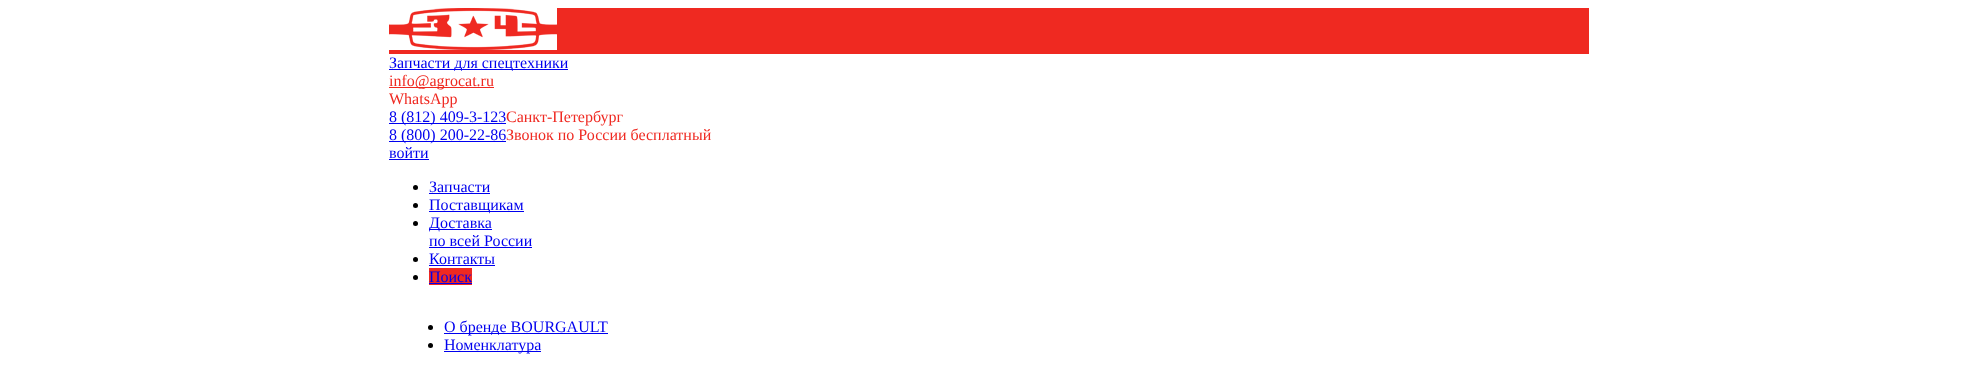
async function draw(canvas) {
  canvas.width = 1978;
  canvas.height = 373;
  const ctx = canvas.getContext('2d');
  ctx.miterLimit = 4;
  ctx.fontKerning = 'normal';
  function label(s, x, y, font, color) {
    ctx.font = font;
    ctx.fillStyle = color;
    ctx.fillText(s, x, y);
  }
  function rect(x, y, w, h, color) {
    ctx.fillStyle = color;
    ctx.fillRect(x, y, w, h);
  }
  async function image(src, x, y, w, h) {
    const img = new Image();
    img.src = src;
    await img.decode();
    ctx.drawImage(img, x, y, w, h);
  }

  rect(0, 0, 1978, 373, '#fff');
  rect(389, 8, 1200, 46, '#ef2921');
  await image('assets/img1.png', 389, 8, 168, 42);
  rect(389, 69, 179, 1, '#00e');
  label('Запчасти для спецтехники', 389, 68, '16px Liberation Serif', '#00e');
  rect(389, 87, 105, 1, '#ef2921');
  label('info@agrocat.ru', 389, 86, '16px Liberation Serif', '#ef2921');
  label('WhatsApp', 389, 104, '16px Liberation Serif', '#ef2921');
  rect(389, 123, 117, 1, '#00e');
  label('8 (812) 409-3-123', 389, 122, '16px Liberation Serif', '#00e');
  label('Санкт-Петербург', 506, 122, '16px Liberation Serif', '#ef2921');
  rect(389, 141, 117, 1, '#00e');
  label('8 (800) 200-22-86', 389, 140, '16px Liberation Serif', '#00e');
  label('Звонок по России бесплатный', 506, 140, '16px Liberation Serif', '#ef2921');
  label('войти', 389, 158, '16px Liberation Serif', '#00e');
  rect(389, 159, 40, 1, '#00e');
  ctx.fillStyle = '#000';
  ctx.beginPath();
  ctx.arc(415.5, 187.5, 2.5, 0, 2 * Math.PI);
  ctx.fill();
  label('Запчасти', 429, 192, '16px Liberation Serif', '#00e');
  rect(429, 193, 61, 1, '#00e');
  ctx.fillStyle = '#000';
  ctx.beginPath();
  ctx.arc(415.5, 205.5, 2.5, 0, 2 * Math.PI);
  ctx.fill();
  rect(429, 211, 95, 1, '#00e');
  label('Поставщикам', 429, 210, '16px Liberation Serif', '#00e');
  ctx.fillStyle = '#000';
  ctx.beginPath();
  ctx.arc(415.5, 223.5, 2.5, 0, 2 * Math.PI);
  ctx.fill();
  rect(429, 229, 63, 1, '#00e');
  label('Доставка', 429, 228, '16px Liberation Serif', '#00e');
  label('по всей России', 429, 246, '16px Liberation Serif', '#00e');
  rect(429, 247, 103, 1, '#00e');
  ctx.fillStyle = '#000';
  ctx.beginPath();
  ctx.arc(415.5, 259.5, 2.5, 0, 2 * Math.PI);
  ctx.fill();
  label('Контакты', 429, 264, '16px Liberation Serif', '#00e');
  rect(429, 265, 66, 1, '#00e');
  ctx.fillStyle = '#000';
  ctx.beginPath();
  ctx.arc(415.5, 277.5, 2.5, 0, 2 * Math.PI);
  ctx.fill();
  rect(429, 268, 43, 17, '#ef2921');
  label('Поиск', 429, 282, '16px Liberation Serif', '#00e');
  rect(429, 283, 43, 1, '#00e');
  ctx.fillStyle = '#000';
  ctx.beginPath();
  ctx.arc(430.5, 327.5, 2.5, 0, 2 * Math.PI);
  ctx.fill();
  rect(444, 333, 164, 1, '#00e');
  label('О бренде BOURGAULT', 444, 332, '16px Liberation Serif', '#00e');
  ctx.fillStyle = '#000';
  ctx.beginPath();
  ctx.arc(430.5, 345.5, 2.5, 0, 2 * Math.PI);
  ctx.fill();
  rect(444, 351, 97, 1, '#00e');
  label('Номенклатура', 444, 350, '16px Liberation Serif', '#00e');
}

draw(document.querySelector('canvas'));
